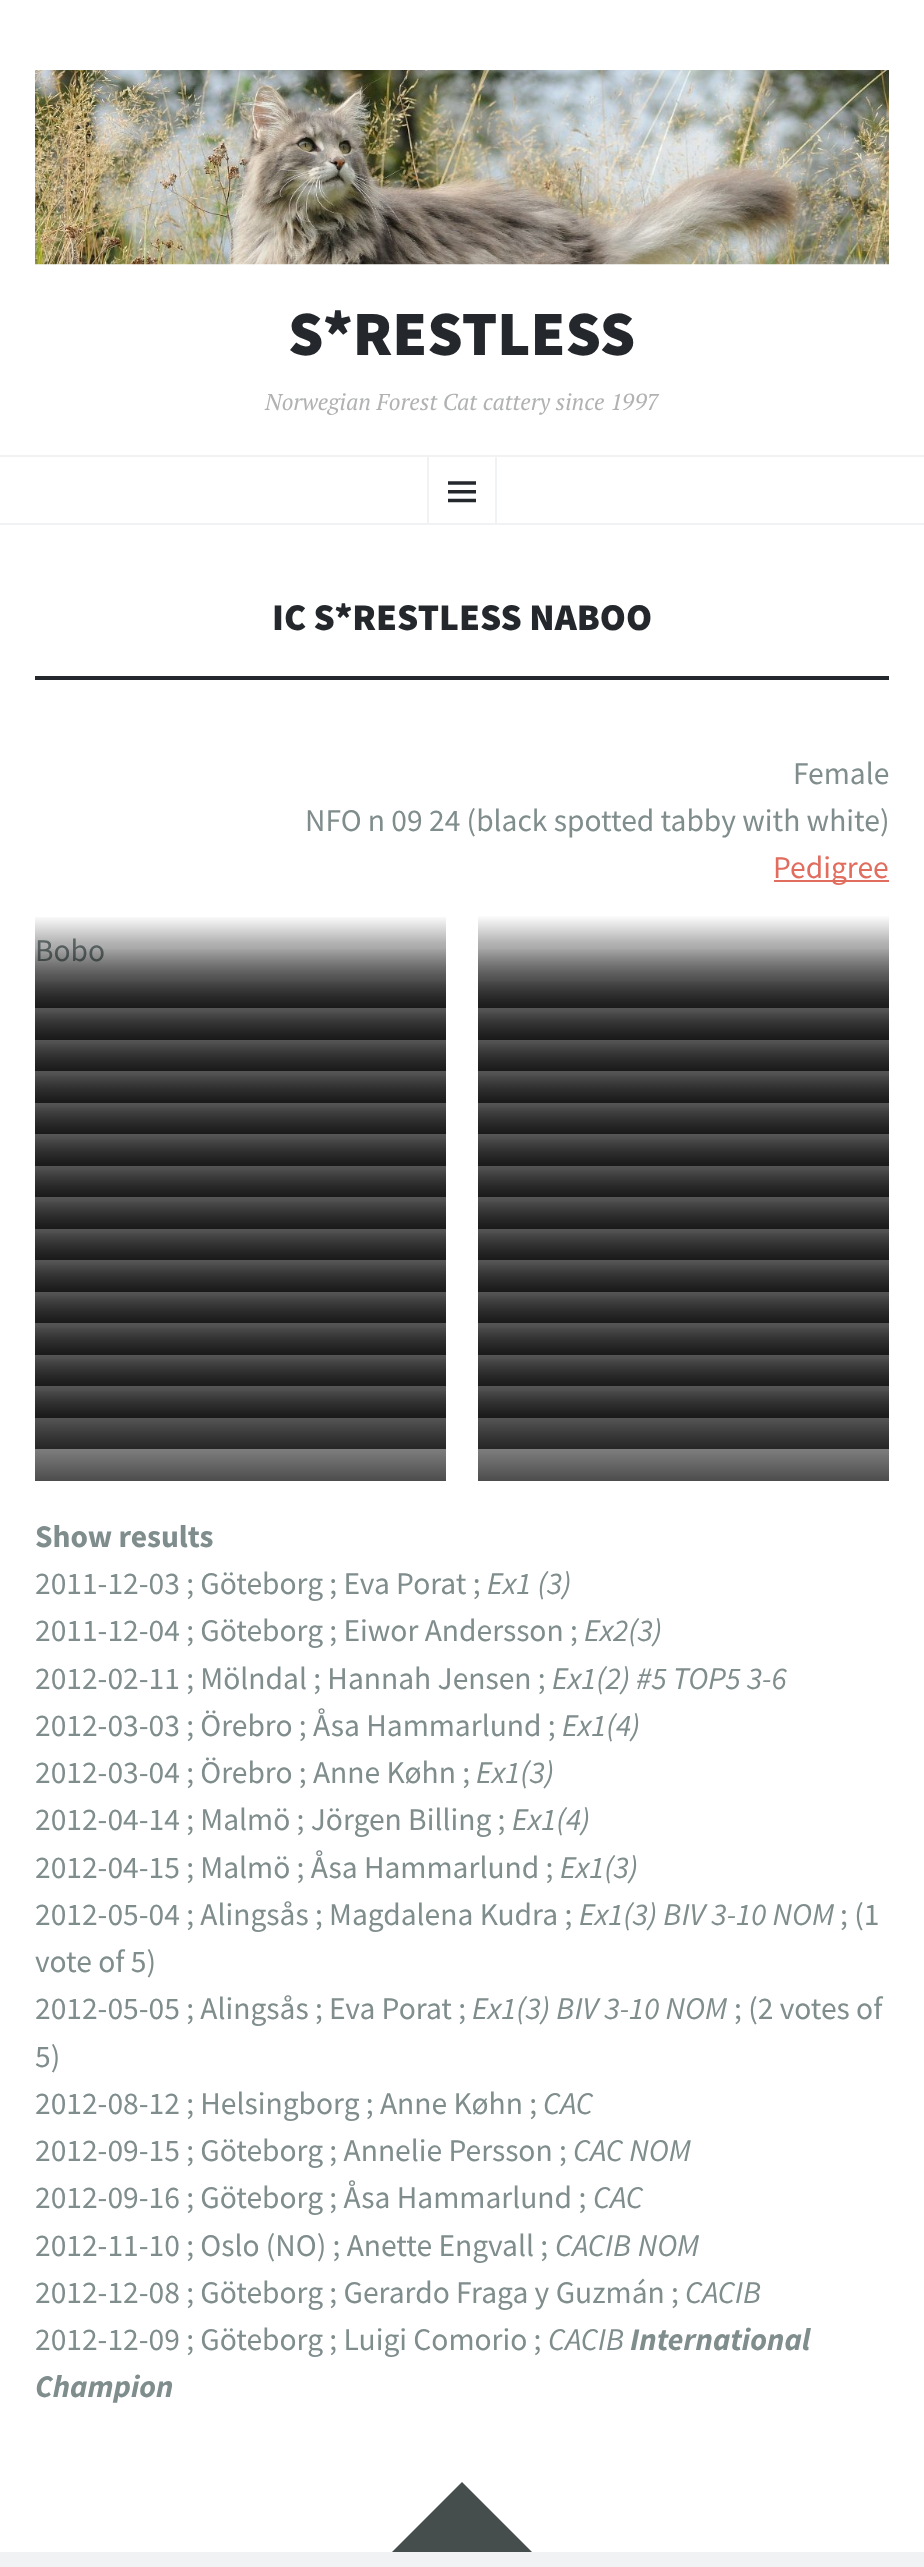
async function draw(canvas) {
  canvas.width = 924;
  canvas.height = 2567;
  const ctx = canvas.getContext('2d');
  ctx.miterLimit = 4;
  ctx.fontKerning = 'normal';
  function label(s, x, y, font, color) {
    ctx.font = font;
    ctx.fillStyle = color;
    ctx.fillText(s, x, y);
  }
  function rect(x, y, w, h, color) {
    ctx.fillStyle = color;
    ctx.fillRect(x, y, w, h);
  }
  async function image(src, x, y, w, h) {
    const img = new Image();
    img.src = src;
    await img.decode();
    ctx.drawImage(img, x, y, w, h);
  }
  let gradient, path;

  rect(0, 0, 924, 2567, '#fff');
  await image('assets/img1.png', 35, 70, 854, 195);
  label('S*RESTLESS', 288, 355, '900 63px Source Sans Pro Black', '#24282d');
  label('Norwegian Forest Cat cattery since 1997', 265, 410, 'italic 23px PT Serif', '#b1b2b3');
  rect(0, 455, 924, 2, '#f1f2f3');
  rect(0, 523, 924, 2, '#f1f2f3');
  ctx.strokeStyle = '#f1f2f3';
  ctx.lineWidth = 2;
  ctx.strokeRect(428, 456, 68, 68);
  await image('assets/img2.png', 448, 481, 28, 22);
  label('IC S*RESTLESS NABOO', 272, 630, '900 37.75px Source Sans Pro Black', '#24282d');
  rect(35, 676, 854, 4, '#24282d');
  label('Female', 793, 784, '31.5px Source Sans Pro', '#7f8d8c');
  label('NFO n 09 24 (black spotted tabby with white)', 305, 831, '31.5px Source Sans Pro', '#7f8d8c');
  rect(774, 880, 115, 2, '#e06d5e');
  label('Pedigree', 773, 878, '31.5px Source Sans Pro', '#e06d5e');
  label('Bobo', 35, 961, '31.5px Source Sans Pro', '#7f8d8c');
  gradient = ctx.createLinearGradient(241, 1008, 241, 915);
  gradient.addColorStop(0, '#000000b3');
  gradient.addColorStop(0.7, '#0000004d');
  gradient.addColorStop(1, '#00000000');
  ctx.fillStyle = gradient;
  ctx.fillRect(35, 917, 411, 91);
  gradient = ctx.createLinearGradient(683, 1008, 683, 915);
  gradient.addColorStop(0, '#4d4d4d');
  gradient.addColorStop(0.7, '#b3b3b3');
  gradient.addColorStop(1, '#fff');
  ctx.fillStyle = gradient;
  ctx.fillRect(478, 916, 411, 92);
  gradient = ctx.createLinearGradient(241, 1040, 241, 947);
  gradient.addColorStop(0, '#000000b3');
  gradient.addColorStop(0.7, '#0000004d');
  gradient.addColorStop(1, '#00000000');
  ctx.fillStyle = gradient;
  ctx.fillRect(35, 949, 411, 91);
  gradient = ctx.createLinearGradient(683, 1040, 683, 947);
  gradient.addColorStop(0, '#000000b3');
  gradient.addColorStop(0.7, '#0000004d');
  gradient.addColorStop(1, '#00000000');
  ctx.fillStyle = gradient;
  ctx.fillRect(478, 949, 411, 91);
  gradient = ctx.createLinearGradient(241, 1071, 241, 978);
  gradient.addColorStop(0, '#000000b3');
  gradient.addColorStop(0.7, '#0000004d');
  gradient.addColorStop(1, '#00000000');
  ctx.fillStyle = gradient;
  ctx.fillRect(35, 981, 411, 90);
  gradient = ctx.createLinearGradient(683, 1071, 683, 978);
  gradient.addColorStop(0, '#000000b3');
  gradient.addColorStop(0.7, '#0000004d');
  gradient.addColorStop(1, '#00000000');
  ctx.fillStyle = gradient;
  ctx.fillRect(478, 981, 411, 90);
  gradient = ctx.createLinearGradient(241, 1103, 241, 1010);
  gradient.addColorStop(0, '#000000b3');
  gradient.addColorStop(0.7, '#0000004d');
  gradient.addColorStop(1, '#00000000');
  ctx.fillStyle = gradient;
  ctx.fillRect(35, 1013, 411, 90);
  gradient = ctx.createLinearGradient(683, 1103, 683, 1010);
  gradient.addColorStop(0, '#000000b3');
  gradient.addColorStop(0.7, '#0000004d');
  gradient.addColorStop(1, '#00000000');
  ctx.fillStyle = gradient;
  ctx.fillRect(478, 1013, 411, 90);
  gradient = ctx.createLinearGradient(241, 1134, 241, 1041);
  gradient.addColorStop(0, '#000000b3');
  gradient.addColorStop(0.7, '#0000004d');
  gradient.addColorStop(1, '#00000000');
  ctx.fillStyle = gradient;
  ctx.fillRect(35, 1044, 411, 90);
  gradient = ctx.createLinearGradient(683, 1134, 683, 1041);
  gradient.addColorStop(0, '#000000b3');
  gradient.addColorStop(0.7, '#0000004d');
  gradient.addColorStop(1, '#00000000');
  ctx.fillStyle = gradient;
  ctx.fillRect(478, 1044, 411, 90);
  gradient = ctx.createLinearGradient(241, 1166, 241, 1073);
  gradient.addColorStop(0, '#000000b3');
  gradient.addColorStop(0.7, '#0000004d');
  gradient.addColorStop(1, '#00000000');
  ctx.fillStyle = gradient;
  ctx.fillRect(35, 1076, 411, 90);
  gradient = ctx.createLinearGradient(683, 1166, 683, 1073);
  gradient.addColorStop(0, '#000000b3');
  gradient.addColorStop(0.7, '#0000004d');
  gradient.addColorStop(1, '#00000000');
  ctx.fillStyle = gradient;
  ctx.fillRect(478, 1076, 411, 90);
  gradient = ctx.createLinearGradient(241, 1197, 241, 1104);
  gradient.addColorStop(0, '#000000b3');
  gradient.addColorStop(0.7, '#0000004d');
  gradient.addColorStop(1, '#00000000');
  ctx.fillStyle = gradient;
  ctx.fillRect(35, 1107, 411, 90);
  gradient = ctx.createLinearGradient(683, 1197, 683, 1104);
  gradient.addColorStop(0, '#000000b3');
  gradient.addColorStop(0.7, '#0000004d');
  gradient.addColorStop(1, '#00000000');
  ctx.fillStyle = gradient;
  ctx.fillRect(478, 1107, 411, 90);
  gradient = ctx.createLinearGradient(241, 1229, 241, 1136);
  gradient.addColorStop(0, '#000000b3');
  gradient.addColorStop(0.7, '#0000004d');
  gradient.addColorStop(1, '#00000000');
  ctx.fillStyle = gradient;
  ctx.fillRect(35, 1139, 411, 90);
  gradient = ctx.createLinearGradient(683, 1229, 683, 1136);
  gradient.addColorStop(0, '#000000b3');
  gradient.addColorStop(0.7, '#0000004d');
  gradient.addColorStop(1, '#00000000');
  ctx.fillStyle = gradient;
  ctx.fillRect(478, 1139, 411, 90);
  gradient = ctx.createLinearGradient(241, 1260, 241, 1167);
  gradient.addColorStop(0, '#000000b3');
  gradient.addColorStop(0.7, '#0000004d');
  gradient.addColorStop(1, '#00000000');
  ctx.fillStyle = gradient;
  ctx.fillRect(35, 1170, 411, 90);
  gradient = ctx.createLinearGradient(683, 1260, 683, 1167);
  gradient.addColorStop(0, '#000000b3');
  gradient.addColorStop(0.7, '#0000004d');
  gradient.addColorStop(1, '#00000000');
  ctx.fillStyle = gradient;
  ctx.fillRect(478, 1170, 411, 90);
  gradient = ctx.createLinearGradient(241, 1292, 241, 1199);
  gradient.addColorStop(0, '#000000b3');
  gradient.addColorStop(0.7, '#0000004d');
  gradient.addColorStop(1, '#00000000');
  ctx.fillStyle = gradient;
  ctx.fillRect(35, 1202, 411, 90);
  gradient = ctx.createLinearGradient(683, 1292, 683, 1199);
  gradient.addColorStop(0, '#000000b3');
  gradient.addColorStop(0.7, '#0000004d');
  gradient.addColorStop(1, '#00000000');
  ctx.fillStyle = gradient;
  ctx.fillRect(478, 1202, 411, 90);
  gradient = ctx.createLinearGradient(241, 1323, 241, 1230);
  gradient.addColorStop(0, '#000000b3');
  gradient.addColorStop(0.7, '#0000004d');
  gradient.addColorStop(1, '#00000000');
  ctx.fillStyle = gradient;
  ctx.fillRect(35, 1233, 411, 90);
  gradient = ctx.createLinearGradient(683, 1323, 683, 1230);
  gradient.addColorStop(0, '#000000b3');
  gradient.addColorStop(0.7, '#0000004d');
  gradient.addColorStop(1, '#00000000');
  ctx.fillStyle = gradient;
  ctx.fillRect(478, 1233, 411, 90);
  gradient = ctx.createLinearGradient(241, 1355, 241, 1262);
  gradient.addColorStop(0, '#000000b3');
  gradient.addColorStop(0.7, '#0000004d');
  gradient.addColorStop(1, '#00000000');
  ctx.fillStyle = gradient;
  ctx.fillRect(35, 1265, 411, 90);
  gradient = ctx.createLinearGradient(683, 1355, 683, 1262);
  gradient.addColorStop(0, '#000000b3');
  gradient.addColorStop(0.7, '#0000004d');
  gradient.addColorStop(1, '#00000000');
  ctx.fillStyle = gradient;
  ctx.fillRect(478, 1265, 411, 90);
  gradient = ctx.createLinearGradient(241, 1386, 241, 1293);
  gradient.addColorStop(0, '#000000b3');
  gradient.addColorStop(0.7, '#0000004d');
  gradient.addColorStop(1, '#00000000');
  ctx.fillStyle = gradient;
  ctx.fillRect(35, 1296, 411, 90);
  gradient = ctx.createLinearGradient(683, 1386, 683, 1293);
  gradient.addColorStop(0, '#000000b3');
  gradient.addColorStop(0.7, '#0000004d');
  gradient.addColorStop(1, '#00000000');
  ctx.fillStyle = gradient;
  ctx.fillRect(478, 1296, 411, 90);
  gradient = ctx.createLinearGradient(241, 1418, 241, 1325);
  gradient.addColorStop(0, '#000000b3');
  gradient.addColorStop(0.7, '#0000004d');
  gradient.addColorStop(1, '#00000000');
  ctx.fillStyle = gradient;
  ctx.fillRect(35, 1328, 411, 90);
  gradient = ctx.createLinearGradient(683, 1418, 683, 1325);
  gradient.addColorStop(0, '#000000b3');
  gradient.addColorStop(0.7, '#0000004d');
  gradient.addColorStop(1, '#00000000');
  ctx.fillStyle = gradient;
  ctx.fillRect(478, 1328, 411, 90);
  gradient = ctx.createLinearGradient(241, 1449, 241, 1356);
  gradient.addColorStop(0, '#000000b3');
  gradient.addColorStop(0.7, '#0000004d');
  gradient.addColorStop(1, '#00000000');
  ctx.fillStyle = gradient;
  ctx.fillRect(35, 1359, 411, 90);
  gradient = ctx.createLinearGradient(683, 1449, 683, 1356);
  gradient.addColorStop(0, '#000000b3');
  gradient.addColorStop(0.7, '#0000004d');
  gradient.addColorStop(1, '#00000000');
  ctx.fillStyle = gradient;
  ctx.fillRect(478, 1359, 411, 90);
  gradient = ctx.createLinearGradient(241, 1481, 241, 1388);
  gradient.addColorStop(0, '#000000b3');
  gradient.addColorStop(0.7, '#0000004d');
  gradient.addColorStop(1, '#00000000');
  ctx.fillStyle = gradient;
  ctx.fillRect(35, 1391, 411, 90);
  gradient = ctx.createLinearGradient(683, 1481, 683, 1388);
  gradient.addColorStop(0, '#000000b3');
  gradient.addColorStop(0.7, '#0000004d');
  gradient.addColorStop(1, '#00000000');
  ctx.fillStyle = gradient;
  ctx.fillRect(478, 1391, 411, 90);
  label('Show results', 35, 1547, 'bold 31.5px Source Sans Pro', '#7f8d8c');
  label('2011-12-03 ; Göteborg ; Eva Porat ;', 35, 1594, '31.5px Source Sans Pro', '#7f8d8c');
  label('Ex1 (3)', 487, 1594, 'italic 31.5px Source Sans Pro', '#7f8d8c');
  label('2011-12-04 ; Göteborg ; Eiwor Andersson ;', 35, 1641, '31.5px Source Sans Pro', '#7f8d8c');
  label('Ex2(3)', 584, 1641, 'italic 31.5px Source Sans Pro', '#7f8d8c');
  label('2012-02-11 ; Mölndal ; Hannah Jensen ;', 35, 1689, '31.5px Source Sans Pro', '#7f8d8c');
  label('Ex1(2) #5 TOP5 3-6', 552, 1689, 'italic 31.5px Source Sans Pro', '#7f8d8c');
  label('2012-03-03 ; Örebro ; Åsa Hammarlund ;', 35, 1736, '31.5px Source Sans Pro', '#7f8d8c');
  label('Ex1(4)', 562, 1736, 'italic 31.5px Source Sans Pro', '#7f8d8c');
  label('2012-03-04 ; Örebro ; Anne Køhn ;', 35, 1783, '31.5px Source Sans Pro', '#7f8d8c');
  label('Ex1(3)', 476, 1783, 'italic 31.5px Source Sans Pro', '#7f8d8c');
  label('2012-04-14 ; Malmö ; Jörgen Billing ;', 35, 1830, '31.5px Source Sans Pro', '#7f8d8c');
  label('Ex1(4)', 512, 1830, 'italic 31.5px Source Sans Pro', '#7f8d8c');
  label('2012-04-15 ; Malmö ; Åsa Hammarlund ;', 35, 1878, '31.5px Source Sans Pro', '#7f8d8c');
  label('Ex1(3)', 560, 1878, 'italic 31.5px Source Sans Pro', '#7f8d8c');
  label('2012-05-04 ; Alingsås ; Magdalena Kudra ;', 35, 1925, '31.5px Source Sans Pro', '#7f8d8c');
  label('Ex1(3) BIV 3-10 NOM', 579, 1925, 'italic 31.5px Source Sans Pro', '#7f8d8c');
  label('; (1', 840, 1925, '31.5px Source Sans Pro', '#7f8d8c');
  label('vote of 5)', 35, 1972, '31.5px Source Sans Pro', '#7f8d8c');
  label('2012-05-05 ; Alingsås ; Eva Porat ;', 35, 2019, '31.5px Source Sans Pro', '#7f8d8c');
  label('Ex1(3) BIV 3-10 NOM', 472, 2019, 'italic 31.5px Source Sans Pro', '#7f8d8c');
  label('; (2 votes of', 734, 2019, '31.5px Source Sans Pro', '#7f8d8c');
  label('5)', 35, 2067, '31.5px Source Sans Pro', '#7f8d8c');
  label('2012-08-12 ; Helsingborg ; Anne Køhn ;', 35, 2114, '31.5px Source Sans Pro', '#7f8d8c');
  label('CAC', 543, 2114, 'italic 31.5px Source Sans Pro', '#7f8d8c');
  label('2012-09-15 ; Göteborg ; Annelie Persson ;', 35, 2161, '31.5px Source Sans Pro', '#7f8d8c');
  label('CAC NOM', 573, 2161, 'italic 31.5px Source Sans Pro', '#7f8d8c');
  label('2012-09-16 ; Göteborg ; Åsa Hammarlund ;', 35, 2208, '31.5px Source Sans Pro', '#7f8d8c');
  label('CAC', 593, 2208, 'italic 31.5px Source Sans Pro', '#7f8d8c');
  label('2012-11-10 ; Oslo (NO) ; Anette Engvall ;', 35, 2256, '31.5px Source Sans Pro', '#7f8d8c');
  label('CACIB NOM', 555, 2256, 'italic 31.5px Source Sans Pro', '#7f8d8c');
  label('2012-12-08 ; Göteborg ; Gerardo Fraga y Guzmán ;', 35, 2303, '31.5px Source Sans Pro', '#7f8d8c');
  label('CACIB', 685, 2303, 'italic 31.5px Source Sans Pro', '#7f8d8c');
  label('2012-12-09 ; Göteborg ; Luigi Comorio ;', 35, 2350, '31.5px Source Sans Pro', '#7f8d8c');
  label('CACIB', 548, 2350, 'italic 31.5px Source Sans Pro', '#7f8d8c');
  label('International', 630, 2350, 'italic bold 31.5px Source Sans Pro', '#7f8d8c');
  label('Champion', 35, 2397, 'italic bold 31.5px Source Sans Pro', '#7f8d8c');
  ctx.fillStyle = '#464d4d';
  path = new Path2D('M532 2552H392L462 2482Z');
  ctx.fill(path);
  rect(0, 2552, 924, 15, '#f1f2f3');
}

draw(document.querySelector('canvas'));
